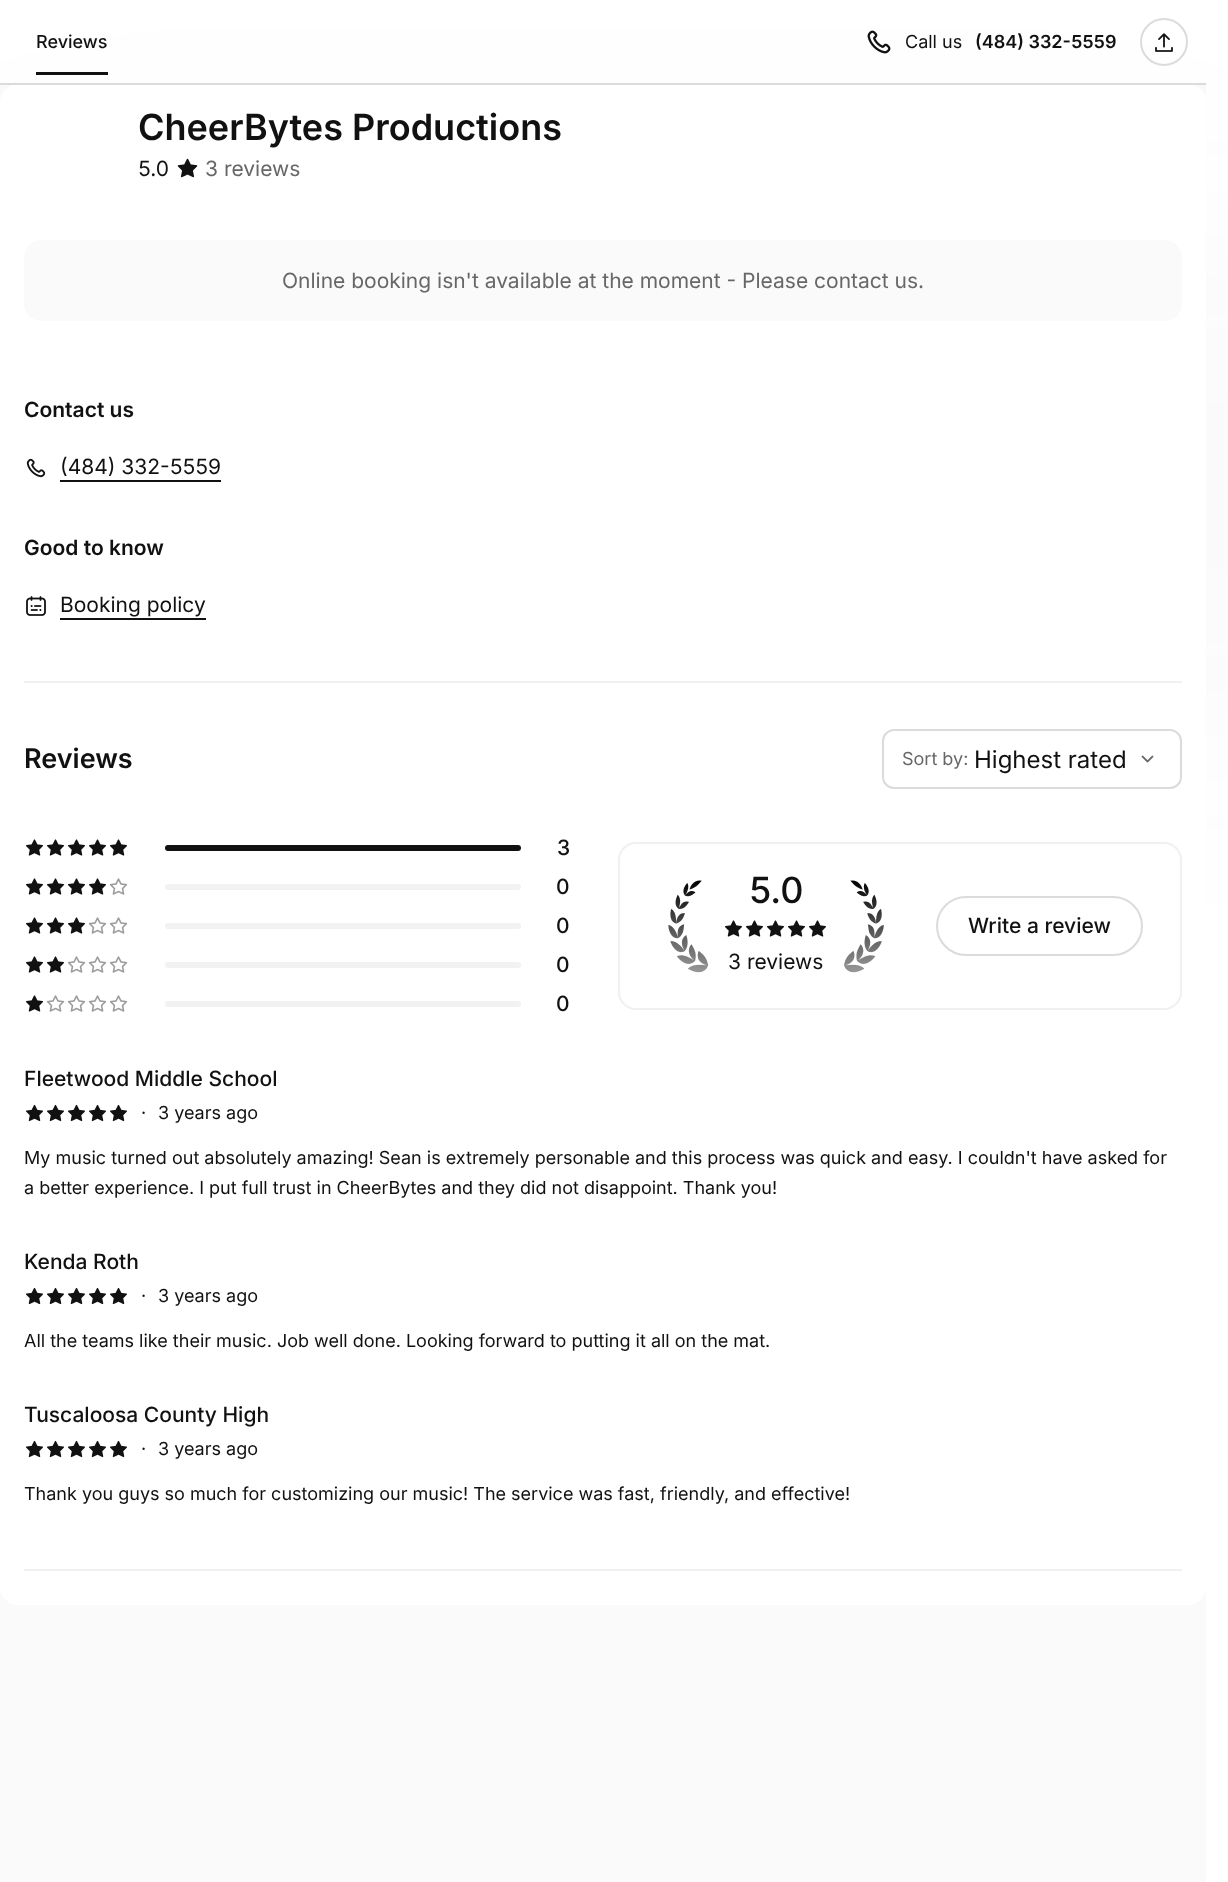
async function draw(canvas) {
  canvas.width = 1228;
  canvas.height = 1882;
  const ctx = canvas.getContext('2d');
  ctx.miterLimit = 4;
  ctx.fontKerning = 'normal';
  function label(s, x, y, font, color) {
    ctx.font = font;
    ctx.fillStyle = color;
    ctx.fillText(s, x, y);
  }
  function rect(x, y, w, h, color) {
    ctx.fillStyle = color;
    ctx.fillRect(x, y, w, h);
  }
  function roundedRect(x, y, w, h, r, color) {
    ctx.fillStyle = color;
    ctx.beginPath();
    ctx.roundRect(x, y, w, h, r);
    ctx.fill();
  }
  async function image(src, x, y, w, h) {
    const img = new Image();
    img.src = src;
    await img.decode();
    ctx.drawImage(img, x, y, w, h);
  }

  rect(0, 0, 1228, 1882, '#fff');
  rect(0, 85, 1206, 1797, '#fafafa');
  ctx.fillStyle = '#3f44470f';
  ctx.filter = 'blur(120px)';
  ctx.beginPath();
  ctx.roundRect(0, 234, 1206, 503, 18);
  ctx.fill();
  ctx.filter = 'none';
  roundedRect(0, 84, 1206, 1521, 18, '#fff');
  rect(0, 83, 1206, 2, '#dbdbdb');
  label('Reviews', 36, 48, '500 18px Inter', '#111');
  rect(36, 72, 72, 3, '#111');
  await image('assets/img1.png', 867, 30, 24, 24);
  label('Call us', 905, 48, '18px Inter', '#111');
  label('(484) 332-5559', 975, 48, '600 18px Inter', '#111');
  ctx.beginPath();
  ctx.arc(1164, 42, 23, 0, 2 * Math.PI);
  ctx.strokeStyle = '#dbdbdb';
  ctx.lineWidth = 2;
  ctx.stroke();
  await image('assets/img2.png', 1155, 33, 18, 19);
  label('CheerBytes Productions', 138, 140, '600 36px Inter', '#111');
  label('5.0', 138, 176, '21px Inter', '#111');
  await image('assets/img3.png', 177, 158, 21, 20);
  label('3 reviews', 205, 176, '21px Inter', '#676767');
  roundedRect(24, 240, 1158, 81, 18, '#fafafa');
  label('Online booking isn\'t available at the moment - Please contact us.', 282, 288, '21px Inter', '#676767');
  label('Contact us', 24, 417, '600 21px Inter', '#111');
  await image('assets/img4.png', 26, 458, 20, 20);
  label('(484) 332-5559', 60, 474, '21px Inter', '#111');
  rect(60, 480, 161, 2, '#111');
  label('Good to know', 24, 555, '600 21px Inter', '#111');
  await image('assets/img5.png', 26, 596, 20, 20);
  label('Booking policy', 60, 612, '21px Inter', '#111');
  rect(60, 618, 146, 2, '#111');
  rect(24, 681, 1158, 2, '#f0f0f0');
  label('Reviews', 24, 768, '600 27px Inter', '#111');
  await image('assets/img6.png', 1141, 755, 13, 8);
  ctx.beginPath();
  ctx.roundRect(883, 730, 298, 58, 11);
  ctx.stroke();
  label('Sort by:', 902, 765, '18px Inter', '#676767');
  label('Highest rated', 974, 768, '24px Inter', '#111');
  await image('assets/img7.png', 26, 839, 17, 17);
  await image('assets/img7.png', 47, 839, 17, 17);
  await image('assets/img7.png', 68, 839, 17, 17);
  await image('assets/img7.png', 89, 839, 17, 17);
  await image('assets/img7.png', 110, 839, 17, 17);
  roundedRect(165, 845, 356, 6, 3, '#111');
  label('3', 557, 855, '500 21px Inter', '#111');
  await image('assets/img7.png', 26, 878, 17, 17);
  await image('assets/img7.png', 47, 878, 17, 17);
  await image('assets/img7.png', 68, 878, 17, 17);
  await image('assets/img7.png', 89, 878, 17, 17);
  await image('assets/img8.png', 109, 878, 19, 17);
  roundedRect(165, 884, 356, 6, 3, '#f2f2f2');
  label('0', 556, 894, '500 21px Inter', '#111');
  await image('assets/img7.png', 26, 917, 17, 17);
  await image('assets/img7.png', 47, 917, 17, 17);
  await image('assets/img7.png', 68, 917, 17, 17);
  await image('assets/img8.png', 88, 917, 19, 17);
  await image('assets/img8.png', 109, 917, 19, 17);
  roundedRect(165, 923, 356, 6, 3, '#f2f2f2');
  label('0', 556, 933, '500 21px Inter', '#111');
  await image('assets/img7.png', 26, 956, 17, 17);
  await image('assets/img7.png', 47, 956, 17, 17);
  await image('assets/img8.png', 67, 956, 19, 17);
  await image('assets/img8.png', 88, 956, 19, 17);
  await image('assets/img8.png', 109, 956, 19, 17);
  roundedRect(165, 962, 356, 6, 3, '#f2f2f2');
  label('0', 556, 972, '500 21px Inter', '#111');
  await image('assets/img7.png', 26, 995, 17, 17);
  await image('assets/img8.png', 46, 995, 19, 17);
  await image('assets/img8.png', 67, 995, 19, 17);
  await image('assets/img8.png', 88, 995, 19, 17);
  await image('assets/img8.png', 109, 995, 19, 17);
  roundedRect(165, 1001, 356, 6, 3, '#f2f2f2');
  label('0', 556, 1011, '500 21px Inter', '#111');
  ctx.beginPath();
  ctx.roundRect(619, 843, 562, 166, 17);
  ctx.strokeStyle = '#f0f0f0';
  ctx.stroke();
  await image('assets/img9.png', 668, 880, 40, 93);
  label('5.0', 749, 903, '500 36px Inter', '#111');
  await image('assets/img7.png', 725, 920, 17, 17);
  await image('assets/img7.png', 746, 920, 17, 17);
  await image('assets/img7.png', 767, 920, 17, 17);
  await image('assets/img7.png', 788, 920, 17, 17);
  await image('assets/img7.png', 809, 920, 17, 17);
  label('3 reviews', 728, 969, '21px Inter', '#111');
  await image('assets/img10.png', 844, 880, 40, 93);
  ctx.beginPath();
  ctx.roundRect(937, 897, 205, 58, 29);
  ctx.strokeStyle = '#dbdbdb';
  ctx.stroke();
  label('Write a review', 968, 933, '500 21px Inter', '#111');
  label('Fleetwood Middle School', 24, 1086, '500 21px Inter', '#111');
  await image('assets/img11.png', 26, 1104, 17, 18);
  await image('assets/img11.png', 47, 1104, 17, 18);
  await image('assets/img11.png', 68, 1104, 17, 18);
  await image('assets/img11.png', 89, 1104, 17, 18);
  await image('assets/img11.png', 110, 1104, 17, 18);
  label('·', 141, 1119, '18px Inter', '#111');
  label('3 years ago', 158, 1119, '18px Inter', '#111');
  label('My music turned out absolutely amazing! Sean is extremely personable and this process was quick and easy. I couldn\'t have asked for', 24, 1164, '18px Inter', '#111');
  label('a better experience. I put full trust in CheerBytes and they did not disappoint. Thank you!', 24, 1194, '18px Inter', '#111');
  label('Kenda Roth', 24, 1269, '500 21px Inter', '#111');
  await image('assets/img11.png', 26, 1287, 17, 18);
  await image('assets/img11.png', 47, 1287, 17, 18);
  await image('assets/img11.png', 68, 1287, 17, 18);
  await image('assets/img11.png', 89, 1287, 17, 18);
  await image('assets/img11.png', 110, 1287, 17, 18);
  label('·', 141, 1302, '18px Inter', '#111');
  label('3 years ago', 158, 1302, '18px Inter', '#111');
  label('All the teams like their music. Job well done. Looking forward to putting it all on the mat.', 24, 1347, '18px Inter', '#111');
  label('Tuscaloosa County High', 24, 1422, '500 21px Inter', '#111');
  await image('assets/img11.png', 26, 1440, 17, 18);
  await image('assets/img11.png', 47, 1440, 17, 18);
  await image('assets/img11.png', 68, 1440, 17, 18);
  await image('assets/img11.png', 89, 1440, 17, 18);
  await image('assets/img11.png', 110, 1440, 17, 18);
  label('·', 141, 1455, '18px Inter', '#111');
  label('3 years ago', 158, 1455, '18px Inter', '#111');
  label('Thank you guys so much for customizing our music! The service was fast, friendly, and effective!', 24, 1500, '18px Inter', '#111');
  rect(24, 1569, 1158, 2, '#f0f0f0');
}

draw(document.querySelector('canvas'));
